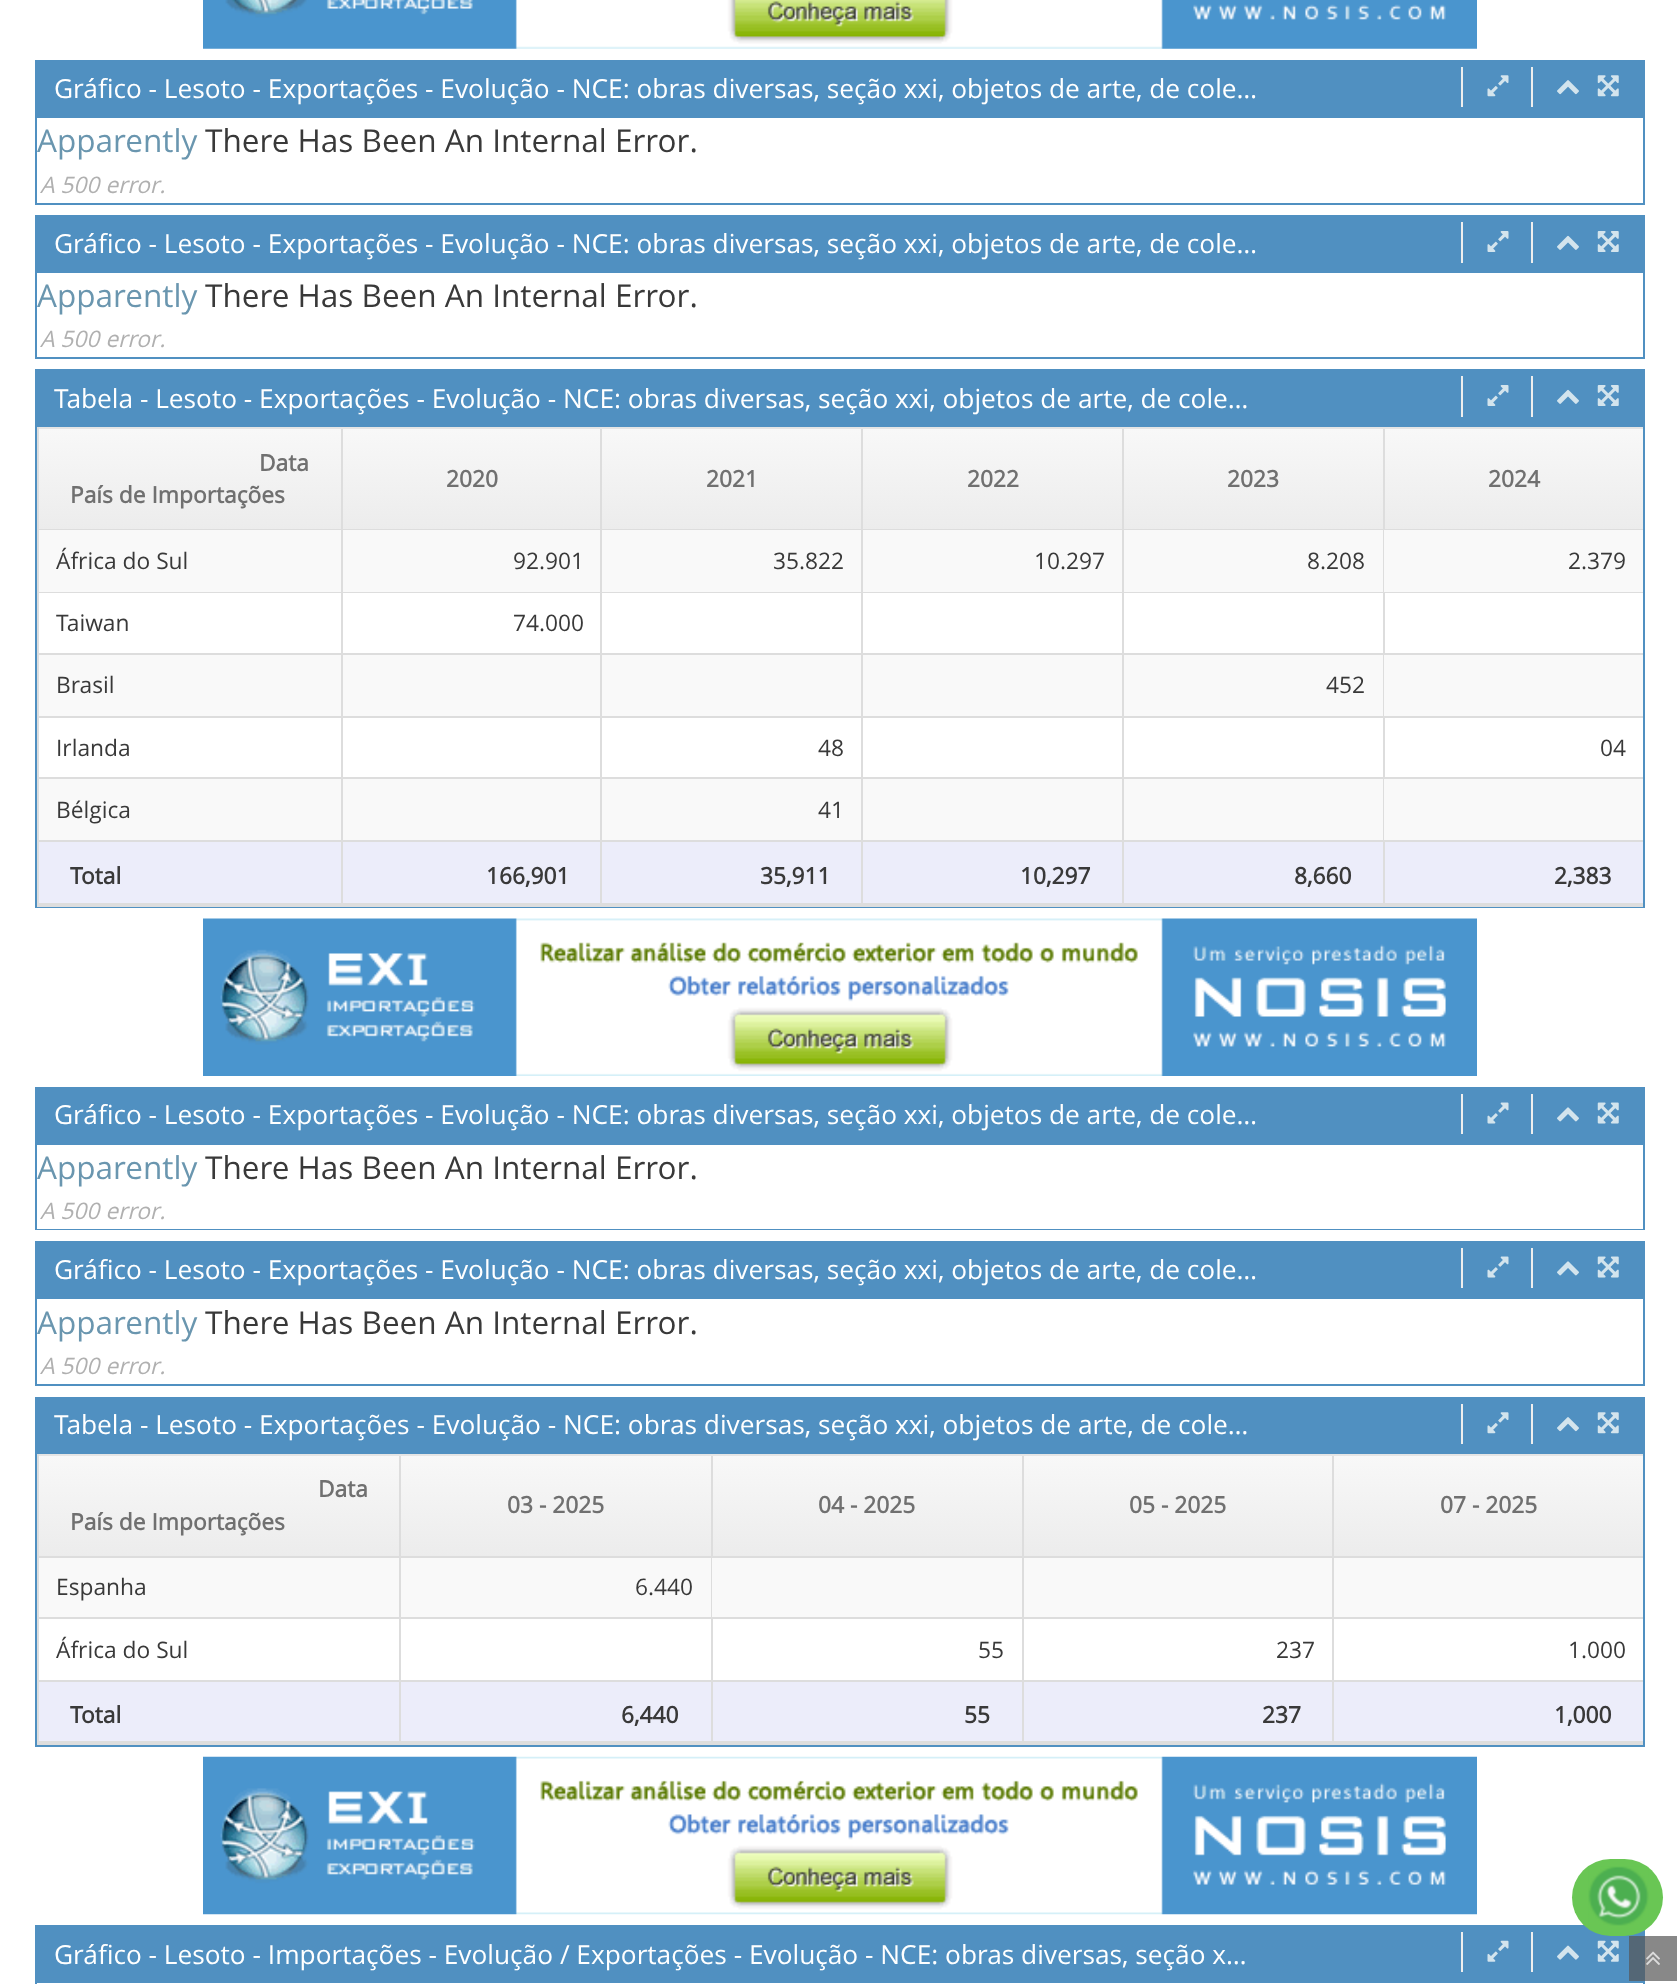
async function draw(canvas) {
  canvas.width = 1680;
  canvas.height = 1984;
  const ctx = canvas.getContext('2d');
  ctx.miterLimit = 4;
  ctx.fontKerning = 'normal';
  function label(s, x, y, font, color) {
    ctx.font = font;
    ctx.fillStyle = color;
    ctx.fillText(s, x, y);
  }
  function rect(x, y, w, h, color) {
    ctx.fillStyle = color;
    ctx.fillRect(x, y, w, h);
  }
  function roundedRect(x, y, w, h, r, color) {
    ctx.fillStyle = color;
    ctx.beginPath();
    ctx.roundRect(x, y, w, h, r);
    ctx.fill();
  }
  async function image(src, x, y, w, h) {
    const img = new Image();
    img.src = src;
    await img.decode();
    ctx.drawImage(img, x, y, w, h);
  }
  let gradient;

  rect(0, 0, 1680, 1984, '#fff');
  await image('assets/img1.png', 203, 0, 1274, 49);
  ctx.strokeStyle = '#5090c1';
  ctx.lineWidth = 2;
  ctx.strokeRect(36, 61, 1608, 143);
  rect(37, 62, 1606, 56, '#5090c1');
  label('Gráfico - Lesoto - Exportações - Evolução - NCE: obras diversas, seção xxi, objetos de arte, de cole…', 54, 98, '26.25px Open Sans', '#fff');
  rect(1461, 67, 2, 40, '#eee');
  await image('assets/img2.png', 1487, 75, 22, 22);
  rect(1531, 67, 2, 40, '#eee');
  await image('assets/img3.png', 1557, 80, 22, 15);
  await image('assets/img4.png', 1597, 75, 22, 22);
  label('Apparently', 37, 152, '31.5px Open Sans', '#6a96af');
  label('There Has Been An Internal Error.', 205, 152, '31.5px Open Sans', '#393939');
  label('A 500 error.', 40, 193, 'italic 22.75px Open Sans', '#b0b0b0');
  ctx.strokeRect(36, 216, 1608, 142);
  rect(37, 217, 1606, 56, '#5090c1');
  label('Gráfico - Lesoto - Exportações - Evolução - NCE: obras diversas, seção xxi, objetos de arte, de cole…', 54, 253, '26.25px Open Sans', '#fff');
  rect(1461, 222, 2, 41, '#eee');
  await image('assets/img5.png', 1487, 231, 22, 21);
  rect(1531, 222, 2, 41, '#eee');
  await image('assets/img6.png', 1557, 235, 22, 15);
  await image('assets/img7.png', 1597, 231, 22, 21);
  label('Apparently', 37, 307, '31.5px Open Sans', '#6a96af');
  label('There Has Been An Internal Error.', 205, 307, '31.5px Open Sans', '#393939');
  label('A 500 error.', 40, 347, 'italic 22.75px Open Sans', '#b0b0b0');
  ctx.strokeRect(36, 370, 1608, 537);
  rect(37, 371, 1606, 56, '#5090c1');
  label('Tabela - Lesoto - Exportações - Evolução - NCE: obras diversas, seção xxi, objetos de arte, de cole…', 54, 408, '26.25px Open Sans', '#fff');
  rect(1461, 376, 2, 41, '#eee');
  await image('assets/img5.png', 1487, 385, 22, 21);
  rect(1531, 376, 2, 41, '#eee');
  await image('assets/img6.png', 1557, 389, 22, 15);
  await image('assets/img7.png', 1597, 385, 22, 21);
  rect(37, 427, 1606, 2, '#e5e5e5');
  rect(37, 905, 1606, 2, '#ddd');
  rect(37, 427, 2, 480, '#ddd');
  gradient = ctx.createLinearGradient(842, 429, 842, 530);
  gradient.addColorStop(0, '#f8f8f8');
  gradient.addColorStop(1, '#ececec');
  ctx.fillStyle = gradient;
  ctx.fillRect(39, 429, 1604, 100);
  rect(341, 429, 2, 413, '#ddd');
  rect(39, 529, 304, 1, '#ddd');
  label('Data', 259, 471, 'bold 22.75px Open Sans', '#707070');
  label('País de Importações', 70, 503, 'bold 22.75px Open Sans', '#707070');
  rect(600, 429, 2, 413, '#ddd');
  rect(343, 529, 259, 1, '#ddd');
  label('2020', 446, 487, 'bold 22.75px Open Sans', '#707070');
  rect(861, 429, 2, 413, '#ddd');
  rect(602, 529, 261, 1, '#ddd');
  label('2021', 706, 487, 'bold 22.75px Open Sans', '#707070');
  rect(1122, 429, 2, 413, '#ddd');
  rect(863, 529, 261, 1, '#ddd');
  label('2022', 967, 487, 'bold 22.75px Open Sans', '#707070');
  rect(1383, 429, 2, 101, '#ddd');
  rect(1124, 529, 519, 1, '#ddd');
  label('2023', 1227, 487, 'bold 22.75px Open Sans', '#707070');
  label('2024', 1488, 487, 'bold 22.75px Open Sans', '#707070');
  rect(39, 530, 302, 62, '#f9f9f9');
  rect(39, 592, 1085, 1, '#ddd');
  label('África do Sul', 56, 569, '22.75px Open Sans', '#393939');
  rect(343, 530, 257, 62, '#f9f9f9');
  label('92.901', 513, 569, '22.75px Open Sans', '#393939');
  rect(602, 530, 259, 62, '#f9f9f9');
  label('35.822', 773, 569, '22.75px Open Sans', '#393939');
  rect(863, 530, 259, 62, '#f9f9f9');
  label('10.297', 1034, 569, '22.75px Open Sans', '#393939');
  rect(1124, 530, 259, 62, '#f9f9f9');
  rect(1383, 530, 1, 63, '#ddd');
  rect(1124, 592, 519, 1, '#ddd');
  label('8.208', 1307, 569, '22.75px Open Sans', '#393939');
  rect(1384, 530, 259, 62, '#f9f9f9');
  label('2.379', 1568, 569, '22.75px Open Sans', '#393939');
  rect(39, 653, 1085, 2, '#ddd');
  label('Taiwan', 56, 631, '22.75px Open Sans', '#393939');
  label('74.000', 513, 631, '22.75px Open Sans', '#393939');
  rect(1383, 593, 2, 62, '#ddd');
  rect(1124, 653, 519, 2, '#ddd');
  rect(39, 655, 302, 61, '#f9f9f9');
  rect(39, 716, 1085, 2, '#ddd');
  label('Brasil', 56, 693, '22.75px Open Sans', '#393939');
  rect(343, 655, 257, 61, '#f9f9f9');
  rect(602, 655, 259, 61, '#f9f9f9');
  rect(863, 655, 259, 61, '#f9f9f9');
  rect(1124, 655, 259, 61, '#f9f9f9');
  rect(1383, 655, 1, 63, '#ddd');
  rect(1124, 716, 519, 2, '#ddd');
  label('452', 1326, 693, '22.75px Open Sans', '#393939');
  rect(1384, 655, 259, 61, '#f9f9f9');
  rect(39, 777, 1085, 2, '#ddd');
  label('Irlanda', 56, 756, '22.75px Open Sans', '#393939');
  label('48', 818, 756, '22.75px Open Sans', '#393939');
  rect(1383, 718, 2, 61, '#ddd');
  rect(1124, 777, 519, 2, '#ddd');
  label('04', 1600, 756, '22.75px Open Sans', '#393939');
  rect(343, 779, 257, 61, '#f9f9f9');
  rect(863, 779, 259, 61, '#f9f9f9');
  rect(1124, 779, 259, 61, '#f9f9f9');
  rect(1383, 779, 1, 63, '#ddd');
  rect(1124, 840, 519, 2, '#ddd');
  rect(39, 779, 302, 61, '#f9f9f9');
  rect(39, 840, 1085, 2, '#ddd');
  label('Bélgica', 56, 818, '22.75px Open Sans', '#393939');
  rect(602, 779, 259, 61, '#f9f9f9');
  label('41', 818, 818, '22.75px Open Sans', '#393939');
  rect(1384, 779, 259, 61, '#f9f9f9');
  rect(39, 842, 1604, 61, '#ecedfa');
  rect(341, 842, 2, 63, '#ddd');
  rect(39, 903, 304, 2, '#ddd');
  label('Total', 70, 884, 'bold 22.75px Open Sans', '#393939');
  rect(600, 842, 2, 63, '#ddd');
  rect(343, 903, 259, 2, '#ddd');
  label('166,901', 486, 884, 'bold 22.75px Open Sans', '#393939');
  rect(861, 842, 2, 63, '#ddd');
  rect(602, 903, 261, 2, '#ddd');
  label('35,911', 760, 884, 'bold 22.75px Open Sans', '#393939');
  rect(1122, 842, 2, 63, '#ddd');
  rect(863, 903, 261, 2, '#ddd');
  label('10,297', 1020, 884, 'bold 22.75px Open Sans', '#393939');
  rect(1383, 842, 2, 63, '#ddd');
  rect(1124, 903, 519, 2, '#ddd');
  label('8,660', 1294, 884, 'bold 22.75px Open Sans', '#393939');
  label('2,383', 1554, 884, 'bold 22.75px Open Sans', '#393939');
  await image('assets/img8.png', 203, 918, 1274, 158);
  ctx.strokeRect(36, 1088, 1608, 141);
  rect(37, 1089, 1606, 56, '#5090c1');
  label('Gráfico - Lesoto - Exportações - Evolução - NCE: obras diversas, seção xxi, objetos de arte, de cole…', 54, 1124, '26.25px Open Sans', '#fff');
  rect(1461, 1094, 2, 40, '#eee');
  await image('assets/img9.png', 1487, 1102, 22, 22);
  rect(1531, 1094, 2, 40, '#eee');
  await image('assets/img10.png', 1557, 1107, 22, 15);
  await image('assets/img11.png', 1597, 1102, 22, 22);
  rect(37, 1228, 1606, 1, '#fff');
  label('Apparently', 37, 1179, '31.5px Open Sans', '#6a96af');
  label('There Has Been An Internal Error.', 205, 1179, '31.5px Open Sans', '#393939');
  label('A 500 error.', 40, 1219, 'italic 22.75px Open Sans', '#b0b0b0');
  ctx.strokeRect(36, 1242, 1608, 143);
  rect(37, 1243, 1606, 56, '#5090c1');
  label('Gráfico - Lesoto - Exportações - Evolução - NCE: obras diversas, seção xxi, objetos de arte, de cole…', 54, 1279, '26.25px Open Sans', '#fff');
  rect(1461, 1248, 2, 40, '#eee');
  await image('assets/img9.png', 1487, 1256, 22, 22);
  rect(1531, 1248, 2, 40, '#eee');
  await image('assets/img10.png', 1557, 1261, 22, 15);
  await image('assets/img11.png', 1597, 1256, 22, 22);
  label('Apparently', 37, 1334, '31.5px Open Sans', '#6a96af');
  label('There Has Been An Internal Error.', 205, 1334, '31.5px Open Sans', '#393939');
  label('A 500 error.', 40, 1374, 'italic 22.75px Open Sans', '#b0b0b0');
  ctx.strokeRect(36, 1398, 1608, 348);
  rect(37, 1399, 1606, 55, '#5090c1');
  label('Tabela - Lesoto - Exportações - Evolução - NCE: obras diversas, seção xxi, objetos de arte, de cole…', 54, 1434, '26.25px Open Sans', '#fff');
  rect(1461, 1404, 2, 40, '#eee');
  await image('assets/img2.png', 1487, 1412, 22, 22);
  rect(1531, 1404, 2, 40, '#eee');
  await image('assets/img3.png', 1557, 1417, 22, 15);
  await image('assets/img4.png', 1597, 1412, 22, 22);
  rect(37, 1454, 1606, 2, '#e5e5e5');
  rect(37, 1743, 1606, 2, '#ddd');
  rect(37, 1454, 2, 291, '#ddd');
  gradient = ctx.createLinearGradient(842, 1456, 842, 1558);
  gradient.addColorStop(0, '#f8f8f8');
  gradient.addColorStop(1, '#ececec');
  ctx.fillStyle = gradient;
  ctx.fillRect(39, 1456, 1604, 100);
  rect(399, 1456, 2, 226, '#ddd');
  rect(39, 1556, 362, 2, '#ddd');
  label('Data', 318, 1497, 'bold 22.75px Open Sans', '#707070');
  label('País de Importações', 70, 1530, 'bold 22.75px Open Sans', '#707070');
  rect(711, 1456, 2, 102, '#ddd');
  rect(401, 1556, 311, 2, '#ddd');
  label('03 - 2025', 507, 1513, 'bold 22.75px Open Sans', '#707070');
  rect(1022, 1456, 2, 226, '#ddd');
  rect(712, 1556, 312, 2, '#ddd');
  label('04 - 2025', 818, 1513, 'bold 22.75px Open Sans', '#707070');
  rect(1332, 1456, 2, 226, '#ddd');
  rect(1024, 1556, 619, 2, '#ddd');
  label('05 - 2025', 1129, 1513, 'bold 22.75px Open Sans', '#707070');
  label('07 - 2025', 1440, 1513, 'bold 22.75px Open Sans', '#707070');
  rect(39, 1558, 360, 59, '#f9f9f9');
  rect(39, 1617, 362, 2, '#ddd');
  label('Espanha', 56, 1595, '22.75px Open Sans', '#393939');
  rect(401, 1558, 310, 59, '#f9f9f9');
  rect(711, 1558, 1, 61, '#ddd');
  rect(401, 1617, 1242, 2, '#ddd');
  label('6.440', 635, 1595, '22.75px Open Sans', '#393939');
  rect(712, 1558, 310, 59, '#f9f9f9');
  rect(1024, 1558, 308, 59, '#f9f9f9');
  rect(1334, 1558, 309, 59, '#f9f9f9');
  rect(39, 1680, 362, 2, '#ddd');
  label('África do Sul', 56, 1658, '22.75px Open Sans', '#393939');
  rect(711, 1619, 2, 63, '#ddd');
  rect(401, 1680, 1242, 2, '#ddd');
  label('55', 978, 1658, '22.75px Open Sans', '#393939');
  label('237', 1276, 1658, '22.75px Open Sans', '#393939');
  label('1.000', 1568, 1658, '22.75px Open Sans', '#393939');
  rect(39, 1682, 1604, 59, '#ecedfa');
  rect(399, 1682, 2, 61, '#ddd');
  rect(39, 1741, 362, 2, '#ddd');
  label('Total', 70, 1723, 'bold 22.75px Open Sans', '#393939');
  rect(711, 1682, 2, 61, '#ddd');
  rect(401, 1741, 311, 2, '#ddd');
  label('6,440', 621, 1723, 'bold 22.75px Open Sans', '#393939');
  rect(1022, 1682, 2, 61, '#ddd');
  rect(712, 1741, 312, 2, '#ddd');
  label('55', 964, 1723, 'bold 22.75px Open Sans', '#393939');
  rect(1332, 1682, 2, 61, '#ddd');
  rect(1024, 1741, 619, 2, '#ddd');
  label('237', 1262, 1723, 'bold 22.75px Open Sans', '#393939');
  label('1,000', 1554, 1723, 'bold 22.75px Open Sans', '#393939');
  await image('assets/img12.png', 203, 1756, 1274, 159);
  ctx.strokeRect(36, 1926, 1608, 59);
  rect(37, 1927, 1606, 56, '#5090c1');
  label('Gráfico - Lesoto - Importações - Evolução / Exportações - Evolução - NCE: obras diversas, seção x…', 54, 1964, '26.25px Open Sans', '#fff');
  rect(1461, 1932, 2, 40, '#eee');
  await image('assets/img13.png', 1487, 1940, 22, 22);
  rect(1531, 1932, 2, 40, '#eee');
  await image('assets/img14.png', 1557, 1945, 22, 15);
  await image('assets/img15.png', 1597, 1940, 22, 22);
  rect(1629, 1936, 48, 45, '#555555b3');
  await image('assets/img16.png', 1646, 1951, 14, 14);
  roundedRect(1572, 1859, 91, 77, 38.5, '#69c654');
  await image('assets/img17.png', 1588, 1866, 61, 60);
}

draw(document.querySelector('canvas'));
